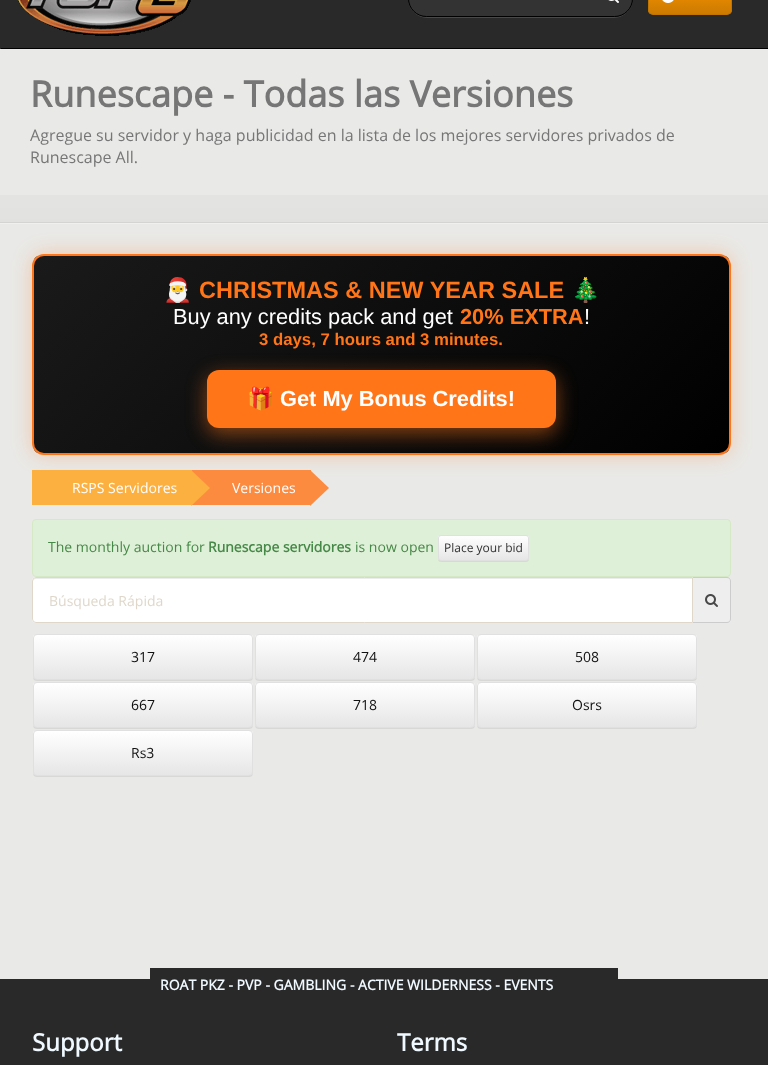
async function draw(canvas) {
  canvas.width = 768;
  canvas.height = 1065;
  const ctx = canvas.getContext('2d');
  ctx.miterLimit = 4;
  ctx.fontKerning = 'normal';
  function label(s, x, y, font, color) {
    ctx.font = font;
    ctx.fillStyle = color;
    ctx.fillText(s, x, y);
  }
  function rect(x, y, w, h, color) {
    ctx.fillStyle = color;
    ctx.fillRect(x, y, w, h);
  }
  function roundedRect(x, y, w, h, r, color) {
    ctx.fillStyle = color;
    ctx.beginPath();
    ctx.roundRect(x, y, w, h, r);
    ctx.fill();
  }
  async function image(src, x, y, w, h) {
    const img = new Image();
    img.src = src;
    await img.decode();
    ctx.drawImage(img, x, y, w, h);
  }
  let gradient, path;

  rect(0, 0, 768, 1065, '#e9e9e7');
  rect(1, 0, 767, 48, '#292929');
  rect(0, 48, 768, 1, '#000');
  rect(0, 0, 1, 49, '#292929');
  await image('assets/img1.png', 18, 0, 173, 36);
  ctx.fillStyle = '#494949';
  path = new Path2D('M408-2V-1C408 9 417 18 427 18H614C624 18 633 9 633-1V-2C633 9 624 17 614 17H427C417 17 408 9 408-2Z');
  ctx.fill(path);
  ctx.fillStyle = '#333';
  ctx.beginPath();
  ctx.roundRect(408.5, -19.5, 224, 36, 18.5);
  ctx.fill();
  ctx.strokeStyle = '#000';
  ctx.stroke();
  await image('assets/img2.png', 608, 0, 11, 3);
  ctx.save();
  ctx.beginPath();
  ctx.roundRect(648, -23, 84, 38, 5);
  ctx.clip();
  gradient = ctx.createLinearGradient(690, -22, 690, 14);
  gradient.addColorStop(0, '#f90');
  gradient.addColorStop(1, '#cc7a00');
  ctx.fillStyle = gradient;
  ctx.fillRect(648, 0, 84, 14);
  ctx.restore();
  ctx.beginPath();
  ctx.roundRect(648.5, -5.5, 83, 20, 4.5);
  ctx.strokeStyle = '#c27400';
  ctx.stroke();
  await image('assets/img3.png', 662, 0, 12, 3);
  await image('assets/img4.png', 0, 195, 768, 29);
  label('Runescape - Todas las Versiones', 30, 107, 'bold 36px Open Sans', '#767676');
  label('Agregue su servidor y haga publicidad en la lista de los mejores servidores privados de', 30, 141, '16px Open Sans', '#767676');
  label('Runescape All.', 30, 163, '16px Open Sans', '#767676');
  ctx.fillStyle = '#ff75184d';
  ctx.filter = 'blur(10px)';
  ctx.beginPath();
  ctx.roundRect(32, 254, 699, 201, 12);
  ctx.fill();
  ctx.filter = 'none';
  ctx.save();
  ctx.beginPath();
  ctx.roundRect(32, 254, 699, 201, 12);
  ctx.clip();
  gradient = ctx.createLinearGradient(158, 132, 605, 578);
  gradient.addColorStop(0, '#1a1a1a');
  gradient.addColorStop(1, '#000');
  ctx.fillStyle = gradient;
  ctx.fillRect(34, 256, 695, 197);
  ctx.restore();
  ctx.beginPath();
  ctx.roundRect(33, 255, 697, 199, 11);
  ctx.strokeStyle = '#ff7518';
  ctx.lineWidth = 2;
  ctx.stroke();
  label('🎅', 163, 298, 'bold 23.5px Noto Color Emoji', '#ff7518');
  label('CHRISTMAS & NEW YEAR SALE', 199, 298, 'bold 23.5px Liberation Sans', '#ff7518');
  label('🎄', 571, 298, 'bold 23.5px Noto Color Emoji', '#ff7518');
  label('Buy any credits pack and get', 173, 324, '21.8px Liberation Sans', '#fff');
  label('20% EXTRA', 460, 324, 'bold 21.8px Liberation Sans', '#ff7518');
  label('!', 584, 324, '21.8px Liberation Sans', '#fff');
  label('3 days, 7 hours and 3 minutes.', 259, 345, 'bold 16.75px Liberation Sans', '#ff7518');
  ctx.fillStyle = '#ff751880';
  ctx.filter = 'blur(10px)';
  ctx.beginPath();
  ctx.roundRect(207, 376, 349, 58, 12);
  ctx.fill();
  ctx.filter = 'none';
  roundedRect(207, 370, 349, 58, 12, '#ff7518');
  label('🎁', 247, 406, 'bold 21.8px Noto Color Emoji', '#fff');
  label('Get My Bonus Credits!', 280, 406, 'bold 21.8px Liberation Sans', '#fff');
  rect(32, 470, 160, 35, '#fcb040');
  label('RSPS Servidores', 72, 493, '14px Open Sans', '#fff');
  rect(192, 470, 119, 35, '#fc8b40');
  ctx.fillStyle = '#fcb040';
  path = new Path2D('M191 506V470L210 488Z');
  ctx.fill(path);
  label('Versiones', 232, 493, '14px Open Sans', '#fff');
  ctx.fillStyle = '#fc8b40';
  path = new Path2D('M310 506V470L329 488Z');
  ctx.fill(path);
  ctx.fillStyle = '#dff0d8';
  ctx.beginPath();
  ctx.roundRect(32.5, 519.5, 698, 57, 3.5);
  ctx.fill();
  ctx.strokeStyle = '#d6e9c6';
  ctx.lineWidth = 1;
  ctx.stroke();
  label('The monthly auction for', 48, 552, '14px Open Sans', '#468847');
  label('Runescape servidores', 208, 552, 'bold 14px Open Sans', '#468847');
  label('is now open', 355, 552, '14px Open Sans', '#468847');
  ctx.fillStyle = '#00000012';
  ctx.filter = 'blur(0.5px)';
  ctx.beginPath();
  ctx.roundRect(438, 536, 91, 26, 3);
  ctx.fill();
  ctx.filter = 'none';
  ctx.save();
  ctx.beginPath();
  ctx.roundRect(438, 535, 91, 26, 3);
  ctx.clip();
  gradient = ctx.createLinearGradient(484, 536, 484, 560);
  gradient.addColorStop(0, '#fff');
  gradient.addColorStop(1, '#e6e6e6');
  ctx.fillStyle = gradient;
  ctx.fillRect(438, 536, 91, 24);
  ctx.restore();
  ctx.fillStyle = '#ffffff26';
  path = new Path2D('M441 537H526C527 537 528 538 528 539C528 532 514 536 512 536H455C453 536 439 532 439 539C439 538 440 537 441 537Z');
  ctx.fill(path);
  ctx.beginPath();
  ctx.roundRect(438.5, 535.5, 90, 25, 2.5);
  ctx.strokeStyle = '#e0e0e0';
  ctx.stroke();
  label('Place your bid', 444, 552, '12px Open Sans', '#333');
  ctx.fillStyle = '#fff';
  ctx.beginPath();
  ctx.roundRect(32, 577, 661, 46, [4, 0, 0, 4]);
  ctx.fill();
  ctx.fillStyle = '#ececec';
  path = new Path2D('M36 579H692V578H36C34 578 33 579 33 581V582C33 580 34 579 36 579Z');
  ctx.fill(path);
  ctx.beginPath();
  ctx.roundRect(32.5, 577.5, 660, 45, [3.5, 0, 0, 3.5]);
  ctx.strokeStyle = '#dfd7ca';
  ctx.stroke();
  label('Búsqueda Rápida', 49, 606, '14px Open Sans', '#dfd7ca');
  ctx.fillStyle = '#eee';
  ctx.beginPath();
  ctx.roundRect(693, 577, 38, 46, [0, 4, 4, 0]);
  ctx.fill();
  ctx.fillStyle = '#ccc';
  path = new Path2D('M693 577H727C729 577 731 579 731 581V619C731 621 729 623 727 623H693ZM693 578H727C729 578 730 579 730 581V619C730 621 729 622 727 622H693Z');
  ctx.fill(path, 'evenodd');
  await image('assets/img5.png', 705, 594, 13, 13);
  ctx.fillStyle = '#00000012';
  ctx.filter = 'blur(0.5px)';
  ctx.beginPath();
  ctx.roundRect(33, 635, 220, 46, 4);
  ctx.fill();
  ctx.filter = 'none';
  ctx.save();
  ctx.beginPath();
  ctx.roundRect(33, 634, 220, 46, 4);
  ctx.clip();
  gradient = ctx.createLinearGradient(143, 635, 143, 679);
  gradient.addColorStop(0, '#fff');
  gradient.addColorStop(1, '#e6e6e6');
  ctx.fillStyle = gradient;
  ctx.fillRect(33, 635, 220, 44);
  ctx.restore();
  ctx.beginPath();
  ctx.roundRect(33.5, 634.5, 219, 45, 3.5);
  ctx.strokeStyle = '#e0e0e0';
  ctx.stroke();
  label('317', 131, 662, '14px Open Sans', '#111');
  ctx.fillStyle = '#00000012';
  ctx.filter = 'blur(0.5px)';
  ctx.beginPath();
  ctx.roundRect(255, 635, 220, 46, 4);
  ctx.fill();
  ctx.filter = 'none';
  ctx.save();
  ctx.beginPath();
  ctx.roundRect(255, 634, 220, 46, 4);
  ctx.clip();
  gradient = ctx.createLinearGradient(365, 635, 365, 679);
  gradient.addColorStop(0, '#fff');
  gradient.addColorStop(1, '#e6e6e6');
  ctx.fillStyle = gradient;
  ctx.fillRect(255, 635, 220, 44);
  ctx.restore();
  ctx.beginPath();
  ctx.roundRect(255.5, 634.5, 219, 45, 3.5);
  ctx.stroke();
  label('474', 353, 662, '14px Open Sans', '#111');
  ctx.fillStyle = '#00000012';
  ctx.filter = 'blur(0.5px)';
  ctx.beginPath();
  ctx.roundRect(477, 635, 220, 46, 4);
  ctx.fill();
  ctx.filter = 'none';
  ctx.save();
  ctx.beginPath();
  ctx.roundRect(477, 634, 220, 46, 4);
  ctx.clip();
  gradient = ctx.createLinearGradient(587, 635, 587, 679);
  gradient.addColorStop(0, '#fff');
  gradient.addColorStop(1, '#e6e6e6');
  ctx.fillStyle = gradient;
  ctx.fillRect(477, 635, 220, 44);
  ctx.restore();
  ctx.beginPath();
  ctx.roundRect(477.5, 634.5, 219, 45, 3.5);
  ctx.stroke();
  label('508', 575, 662, '14px Open Sans', '#111');
  ctx.fillStyle = '#00000012';
  ctx.filter = 'blur(0.5px)';
  ctx.beginPath();
  ctx.roundRect(33, 683, 220, 46, 4);
  ctx.fill();
  ctx.filter = 'none';
  ctx.save();
  ctx.beginPath();
  ctx.roundRect(33, 682, 220, 46, 4);
  ctx.clip();
  gradient = ctx.createLinearGradient(143, 683, 143, 727);
  gradient.addColorStop(0, '#fff');
  gradient.addColorStop(1, '#e6e6e6');
  ctx.fillStyle = gradient;
  ctx.fillRect(33, 683, 220, 44);
  ctx.restore();
  ctx.beginPath();
  ctx.roundRect(33.5, 682.5, 219, 45, 3.5);
  ctx.stroke();
  label('667', 131, 710, '14px Open Sans', '#111');
  ctx.fillStyle = '#00000012';
  ctx.filter = 'blur(0.5px)';
  ctx.beginPath();
  ctx.roundRect(255, 683, 220, 46, 4);
  ctx.fill();
  ctx.filter = 'none';
  ctx.save();
  ctx.beginPath();
  ctx.roundRect(255, 682, 220, 46, 4);
  ctx.clip();
  gradient = ctx.createLinearGradient(365, 683, 365, 727);
  gradient.addColorStop(0, '#fff');
  gradient.addColorStop(1, '#e6e6e6');
  ctx.fillStyle = gradient;
  ctx.fillRect(255, 683, 220, 44);
  ctx.restore();
  ctx.beginPath();
  ctx.roundRect(255.5, 682.5, 219, 45, 3.5);
  ctx.stroke();
  label('718', 353, 710, '14px Open Sans', '#111');
  ctx.fillStyle = '#00000012';
  ctx.filter = 'blur(0.5px)';
  ctx.beginPath();
  ctx.roundRect(477, 683, 220, 46, 4);
  ctx.fill();
  ctx.filter = 'none';
  ctx.save();
  ctx.beginPath();
  ctx.roundRect(477, 682, 220, 46, 4);
  ctx.clip();
  gradient = ctx.createLinearGradient(587, 683, 587, 727);
  gradient.addColorStop(0, '#fff');
  gradient.addColorStop(1, '#e6e6e6');
  ctx.fillStyle = gradient;
  ctx.fillRect(477, 683, 220, 44);
  ctx.restore();
  ctx.beginPath();
  ctx.roundRect(477.5, 682.5, 219, 45, 3.5);
  ctx.stroke();
  label('Osrs', 572, 710, '14px Open Sans', '#111');
  ctx.fillStyle = '#00000012';
  ctx.filter = 'blur(0.5px)';
  ctx.beginPath();
  ctx.roundRect(33, 731, 220, 46, 4);
  ctx.fill();
  ctx.filter = 'none';
  ctx.save();
  ctx.beginPath();
  ctx.roundRect(33, 730, 220, 46, 4);
  ctx.clip();
  gradient = ctx.createLinearGradient(143, 731, 143, 775);
  gradient.addColorStop(0, '#fff');
  gradient.addColorStop(1, '#e6e6e6');
  ctx.fillStyle = gradient;
  ctx.fillRect(33, 731, 220, 44);
  ctx.restore();
  ctx.beginPath();
  ctx.roundRect(33.5, 730.5, 219, 45, 3.5);
  ctx.stroke();
  label('Rs3', 131, 758, '14px Open Sans', '#111');
  rect(150, 968, 468, 11, '#292929');
  rect(0, 979, 768, 86, '#292929');
  label('ROAT PKZ - PVP - GAMBLING - ACTIVE WILDERNESS - EVENTS', 160, 990, 'bold 14px Open Sans', '#f0f9ff');
  label('Support', 32, 1051, 'bold 24px Open Sans', '#f0f9ff');
  label('Terms', 397, 1051, 'bold 24px Open Sans', '#f0f9ff');
}

draw(document.querySelector('canvas'));
